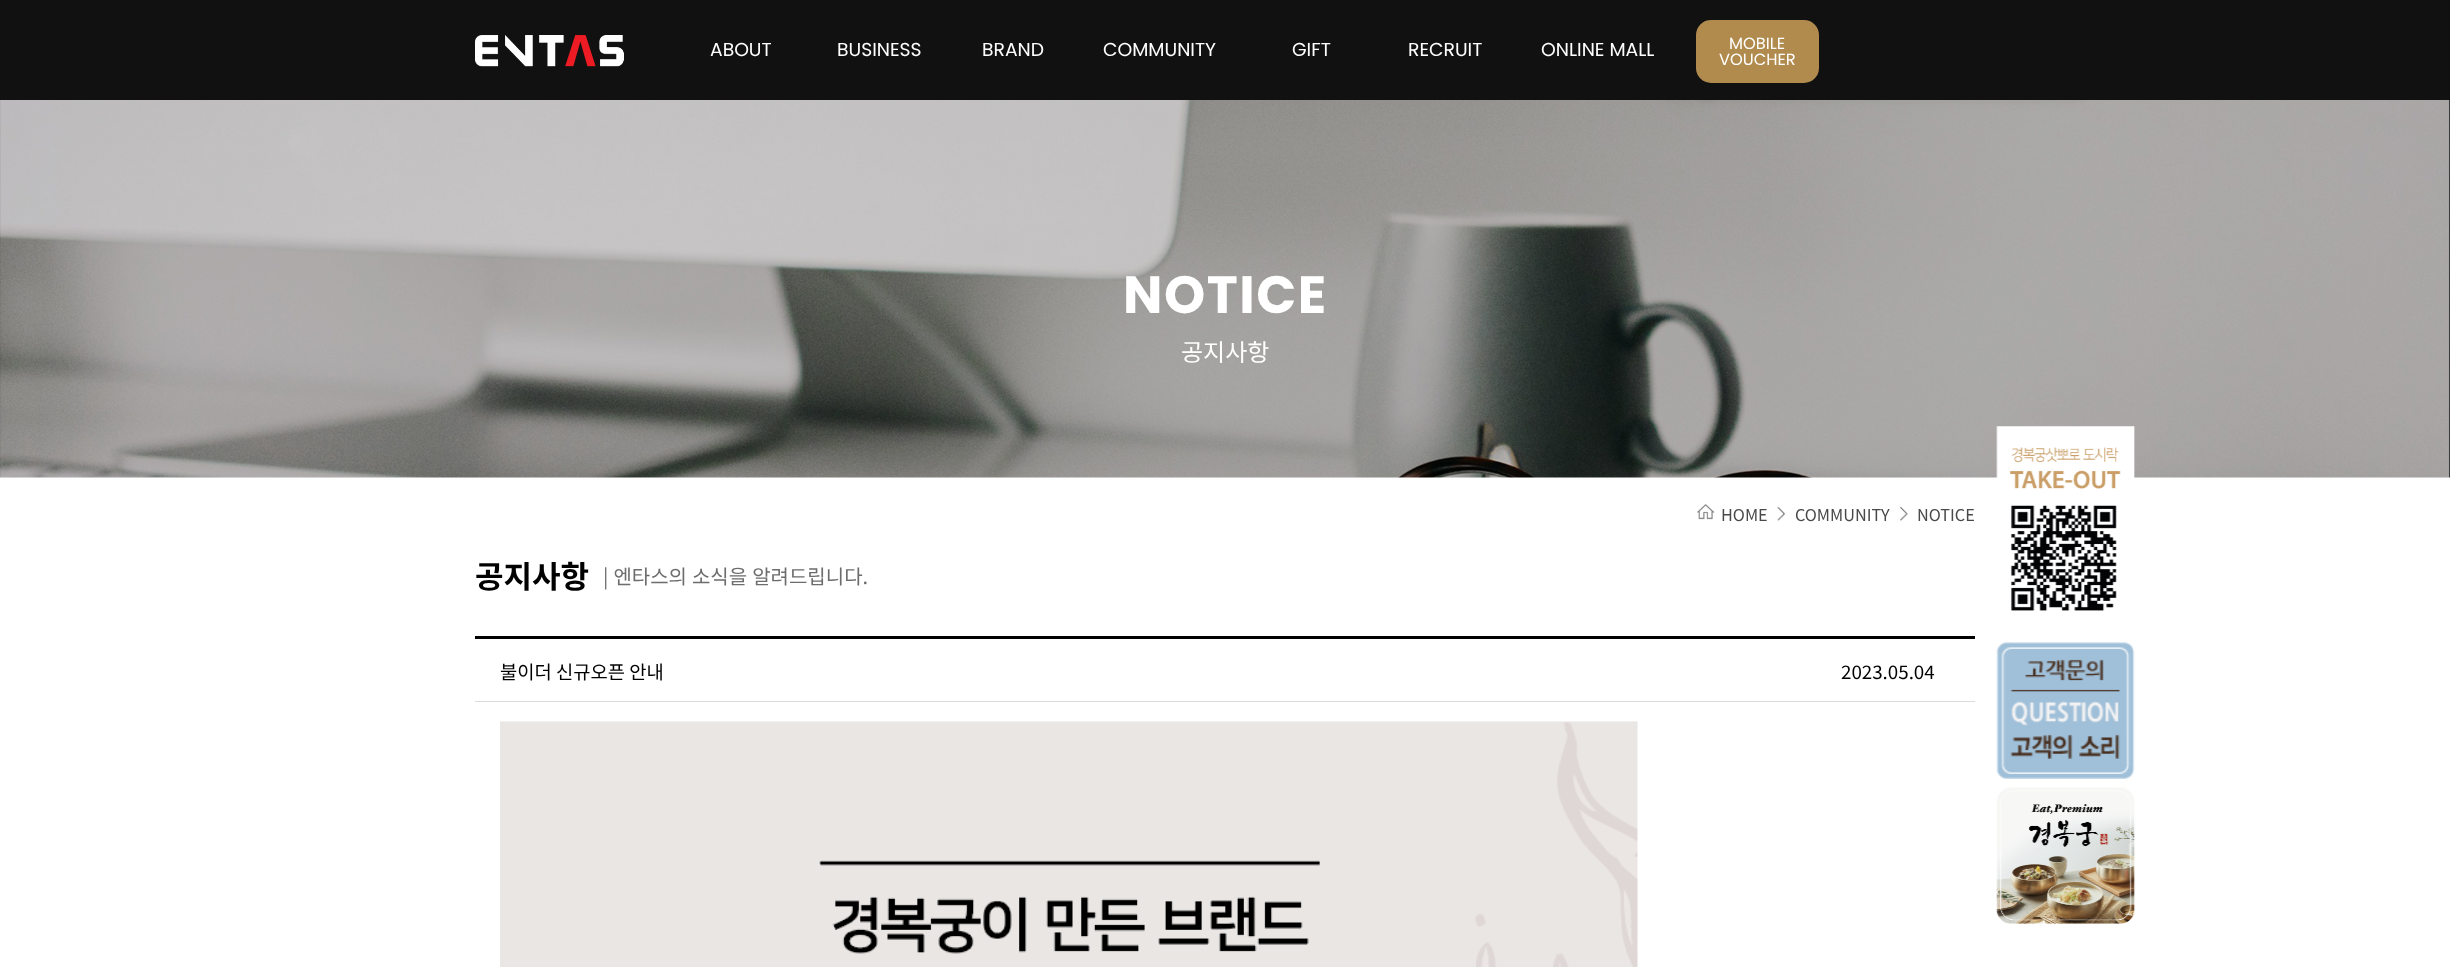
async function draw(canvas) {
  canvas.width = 2450;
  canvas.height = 967;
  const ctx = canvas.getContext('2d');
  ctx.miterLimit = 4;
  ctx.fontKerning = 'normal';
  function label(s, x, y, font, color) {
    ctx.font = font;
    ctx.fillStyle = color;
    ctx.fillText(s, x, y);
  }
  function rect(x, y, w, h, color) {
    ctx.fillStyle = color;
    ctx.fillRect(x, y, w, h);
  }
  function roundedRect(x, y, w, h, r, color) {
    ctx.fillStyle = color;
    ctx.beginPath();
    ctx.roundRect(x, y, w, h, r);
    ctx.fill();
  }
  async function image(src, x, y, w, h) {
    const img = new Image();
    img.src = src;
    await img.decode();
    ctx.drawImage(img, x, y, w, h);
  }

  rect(0, 0, 2450, 967, '#fff');
  rect(0, 0, 2450, 100, '#111');
  await image('assets/img1.png', 475, 35, 149, 32);
  label('ABOUT', 710, 56, '18.75px Poppins', '#fff');
  label('BUSINESS', 837, 56, '18.75px Poppins', '#fff');
  label('BRAND', 982, 56, '18.75px Poppins', '#fff');
  label('COMMUNITY', 1103, 56, '18.75px Poppins', '#fff');
  label('GIFT', 1292, 56, '18.75px Poppins', '#fff');
  label('RECRUIT', 1408, 56, '18.75px Poppins', '#fff');
  label('ONLINE MALL', 1541, 56, '18.75px Poppins', '#fff');
  roundedRect(1696, 20, 123, 63, 15, '#b18b4e');
  label('MOBILE', 1729, 49, '16.25px Poppins', '#fff');
  label('VOUCHER', 1719, 65, '16.25px Poppins', '#fff');
  await image('assets/img2.png', 0, 100, 2450, 378);
  ctx.letterSpacing = '1.5px';
  label('NOTICE', 1123, 313, 'bold 52.5px Poppins', '#fff');
  ctx.letterSpacing = '0px';
  label('공지사항', 1181, 361, '24px Noto Sans KR', '#fff');
  await image('assets/img3.png', 1697, 504, 18, 16);
  label('HOME', 1721, 521, '16.25px Noto Sans KR', '#494949');
  await image('assets/img4.png', 1777, 507, 8, 14);
  label('COMMUNITY', 1795, 521, '16.25px Noto Sans KR', '#494949');
  await image('assets/img5.png', 1900, 506, 8, 15);
  label('NOTICE', 1917, 521, '16.25px Noto Sans KR', '#494949');
  label('공지사항', 475, 588, 'bold 31px Noto Sans KR', '#000');
  ctx.wordSpacing = '0.5px';
  label('| 엔타스의 소식을 알려드립니다.', 603, 584, '20px Noto Sans KR', '#6d6d6d');
  rect(475, 636, 1500, 3, '#000');
  rect(475, 701, 1500, 1, '#dbdbdb');
  ctx.wordSpacing = '0px';
  label('불이더 신규오픈 안내', 500, 679, '18.75px Noto Sans KR', '#000');
  label('2023.05.04', 1841, 679, '18.75px Noto Sans KR', '#000');
  await image('assets/img6.png', 500, 721, 1138, 246);
  await image('assets/img7.png', 1996, 426, 139, 185);
  await image('assets/img8.png', 1996, 642, 139, 137);
  await image('assets/img9.png', 1996, 787, 140, 137);
}

draw(document.querySelector('canvas'));
